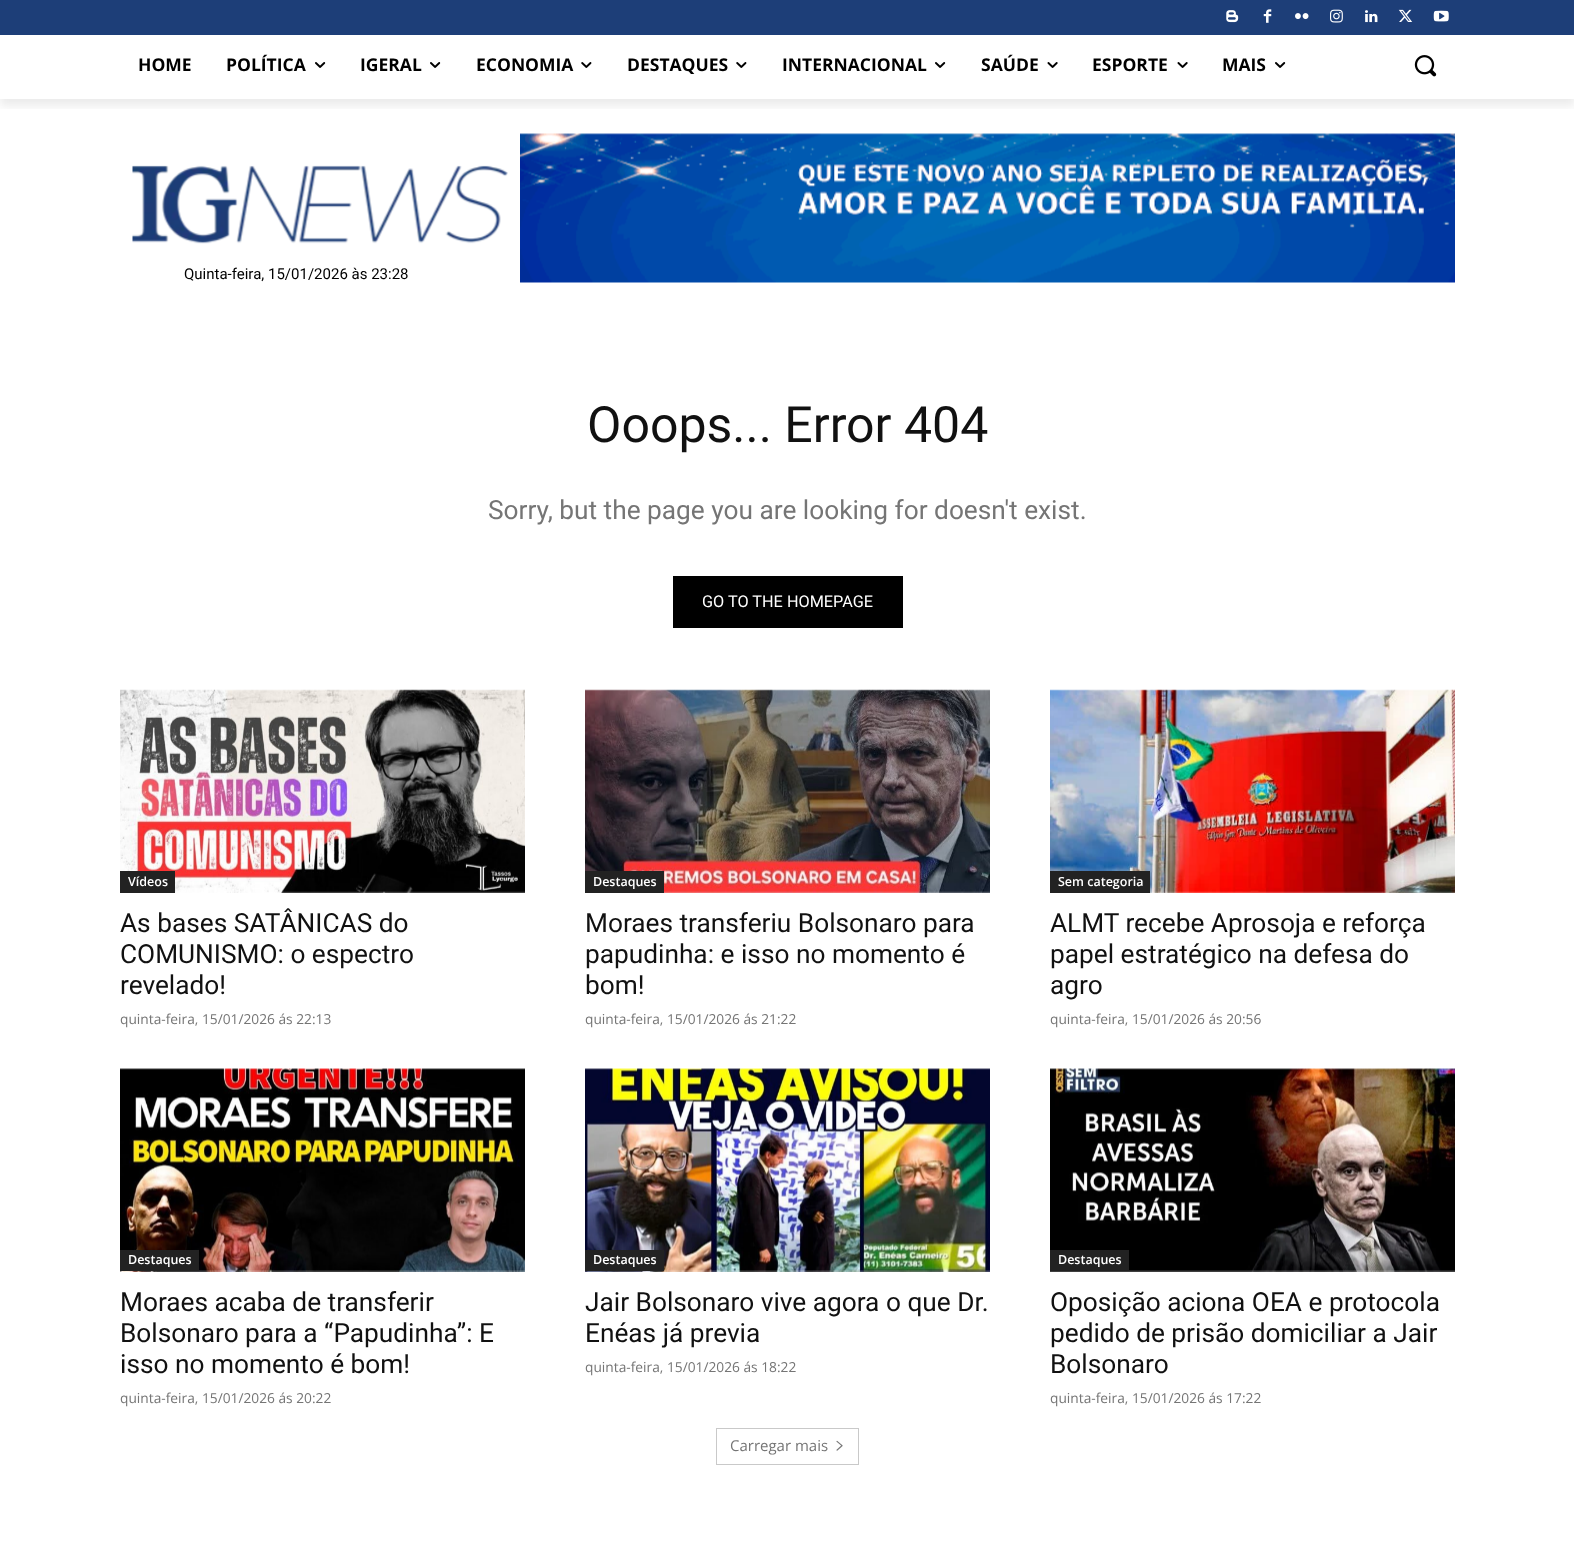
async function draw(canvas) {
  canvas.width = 1574;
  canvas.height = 1548;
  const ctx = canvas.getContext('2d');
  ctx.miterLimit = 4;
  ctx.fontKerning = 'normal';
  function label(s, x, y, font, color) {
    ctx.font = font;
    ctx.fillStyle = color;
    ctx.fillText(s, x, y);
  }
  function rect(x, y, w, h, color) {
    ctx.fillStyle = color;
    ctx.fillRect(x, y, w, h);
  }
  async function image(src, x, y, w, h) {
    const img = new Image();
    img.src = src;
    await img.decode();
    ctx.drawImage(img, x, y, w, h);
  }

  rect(0, 0, 1574, 1548, '#fff');
  rect(0, 0, 1574, 35, '#1d3e78');
  await image('assets/img1.png', 1226, 10, 13, 13);
  await image('assets/img2.png', 1263, 9, 9, 14);
  await image('assets/img3.png', 1295, 13, 14, 7);
  await image('assets/img4.png', 1330, 9, 13, 14);
  await image('assets/img5.png', 1365, 10, 13, 13);
  await image('assets/img6.png', 1398, 9, 15, 13);
  await image('assets/img7.png', 1433, 10, 16, 12);
  ctx.save();
  ctx.beginPath();
  ctx.rect(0, 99, 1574, 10);
  ctx.clip();
  ctx.fillStyle = '#00000014';
  ctx.filter = 'blur(5px)';
  ctx.beginPath();
  ctx.rect(0, 43, 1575, 63);
  ctx.fill();
  ctx.filter = 'none';
  ctx.restore();
  label('HOME', 138, 71, 'bold 17.5px Open Sans', '#000');
  label('POLÍTICA', 226, 71, 'bold 17.5px Open Sans', '#000');
  await image('assets/img8.png', 315, 62, 11, 6);
  label('IGERAL', 360, 71, 'bold 17.5px Open Sans', '#000');
  await image('assets/img8.png', 430, 62, 11, 6);
  label('ECONOMIA', 476, 71, 'bold 17.5px Open Sans', '#000');
  await image('assets/img9.png', 581, 62, 11, 6);
  label('DESTAQUES', 627, 71, 'bold 17.5px Open Sans', '#000');
  await image('assets/img9.png', 736, 62, 11, 6);
  label('INTERNACIONAL', 782, 71, 'bold 17.5px Open Sans', '#000');
  await image('assets/img8.png', 935, 62, 11, 6);
  label('SAÚDE', 981, 71, 'bold 17.5px Open Sans', '#000');
  await image('assets/img10.png', 1047, 62, 11, 6);
  label('ESPORTE', 1092, 71, 'bold 17.5px Open Sans', '#000');
  await image('assets/img10.png', 1177, 62, 11, 6);
  label('MAIS', 1222, 71, 'bold 17.5px Open Sans', '#000');
  await image('assets/img8.png', 1275, 62, 11, 6);
  await image('assets/img11.png', 1414, 55, 23, 22);
  await image('assets/img12.png', 132, 165, 376, 79);
  label('Quinta-feira, 15/01/2026 às 23:28', 184, 279, '15px Roboto', '#000');
  await image('assets/img13.png', 520, 133, 935, 150);
  label('Ooops... Error 404', 587, 442, '50px Roboto', '#111');
  label('Sorry, but the page you are looking for doesn\'t exist.', 488, 519, '26.25px Roboto', '#757575');
  rect(673, 576, 230, 52, '#000');
  label('GO TO THE HOMEPAGE', 702, 607, '16.25px Roboto', '#fff');
  await image('assets/img14.png', 120, 689, 405, 204);
  rect(120, 871, 55, 22, '#222');
  label('Vídeos', 128, 886, '600 12.5px Open Sans', '#fff');
  label('As bases SATÂNICAS do', 120, 932, '26.25px Roboto', '#111');
  label('COMUNISMO: o espectro', 120, 963, '26.25px Roboto', '#111');
  label('revelado!', 120, 994, '26.25px Roboto', '#111');
  label('quinta-feira, 15/01/2026 ás 22:13', 120, 1024, '13.75px Open Sans', '#757575');
  await image('assets/img15.png', 585, 689, 405, 204);
  rect(585, 871, 79, 22, '#222');
  label('Destaques', 593, 886, '600 12.5px Open Sans', '#fff');
  label('Moraes transferiu Bolsonaro para', 585, 932, '26.25px Roboto', '#111');
  label('papudinha: e isso no momento é', 585, 963, '26.25px Roboto', '#111');
  label('bom!', 585, 994, '26.25px Roboto', '#111');
  label('quinta-feira, 15/01/2026 ás 21:22', 585, 1024, '13.75px Open Sans', '#757575');
  await image('assets/img16.png', 1050, 689, 405, 204);
  rect(1050, 871, 100, 22, '#222');
  label('Sem categoria', 1058, 886, '600 12.5px Open Sans', '#fff');
  label('ALMT recebe Aprosoja e reforça', 1050, 932, '26.25px Roboto', '#111');
  label('papel estratégico na defesa do', 1050, 963, '26.25px Roboto', '#111');
  label('agro', 1050, 994, '26.25px Roboto', '#111');
  label('quinta-feira, 15/01/2026 ás 20:56', 1050, 1024, '13.75px Open Sans', '#757575');
  await image('assets/img17.png', 120, 1068, 405, 204);
  rect(120, 1250, 79, 21, '#222');
  label('Destaques', 128, 1264, '600 12.5px Open Sans', '#fff');
  label('Moraes acaba de transferir', 120, 1311, '26.25px Roboto', '#111');
  label('Bolsonaro para a “Papudinha”: E', 120, 1342, '26.25px Roboto', '#111');
  label('isso no momento é bom!', 120, 1373, '26.25px Roboto', '#111');
  label('quinta-feira, 15/01/2026 ás 20:22', 120, 1403, '13.75px Open Sans', '#757575');
  await image('assets/img18.png', 585, 1068, 405, 204);
  rect(585, 1250, 79, 21, '#222');
  label('Destaques', 593, 1264, '600 12.5px Open Sans', '#fff');
  label('Jair Bolsonaro vive agora o que Dr.', 585, 1311, '26.25px Roboto', '#111');
  label('Enéas já previa', 585, 1342, '26.25px Roboto', '#111');
  label('quinta-feira, 15/01/2026 ás 18:22', 585, 1372, '13.75px Open Sans', '#757575');
  await image('assets/img19.png', 1050, 1068, 405, 204);
  rect(1050, 1250, 79, 20, '#222');
  label('Destaques', 1058, 1264, '600 12.5px Open Sans', '#fff');
  label('Oposição aciona OEA e protocola', 1050, 1311, '26.25px Roboto', '#111');
  label('pedido de prisão domiciliar a Jair', 1050, 1342, '26.25px Roboto', '#111');
  label('Bolsonaro', 1050, 1373, '26.25px Roboto', '#111');
  label('quinta-feira, 15/01/2026 ás 17:22', 1050, 1403, '13.75px Open Sans', '#757575');
  ctx.strokeStyle = '#c9c9c9';
  ctx.strokeRect(716.5, 1428.5, 142, 36);
  label('Carregar mais', 730, 1451, '15px Open Sans', '#757575');
  await image('assets/img20.png', 836, 1440, 7, 11);
}

draw(document.querySelector('canvas'));
